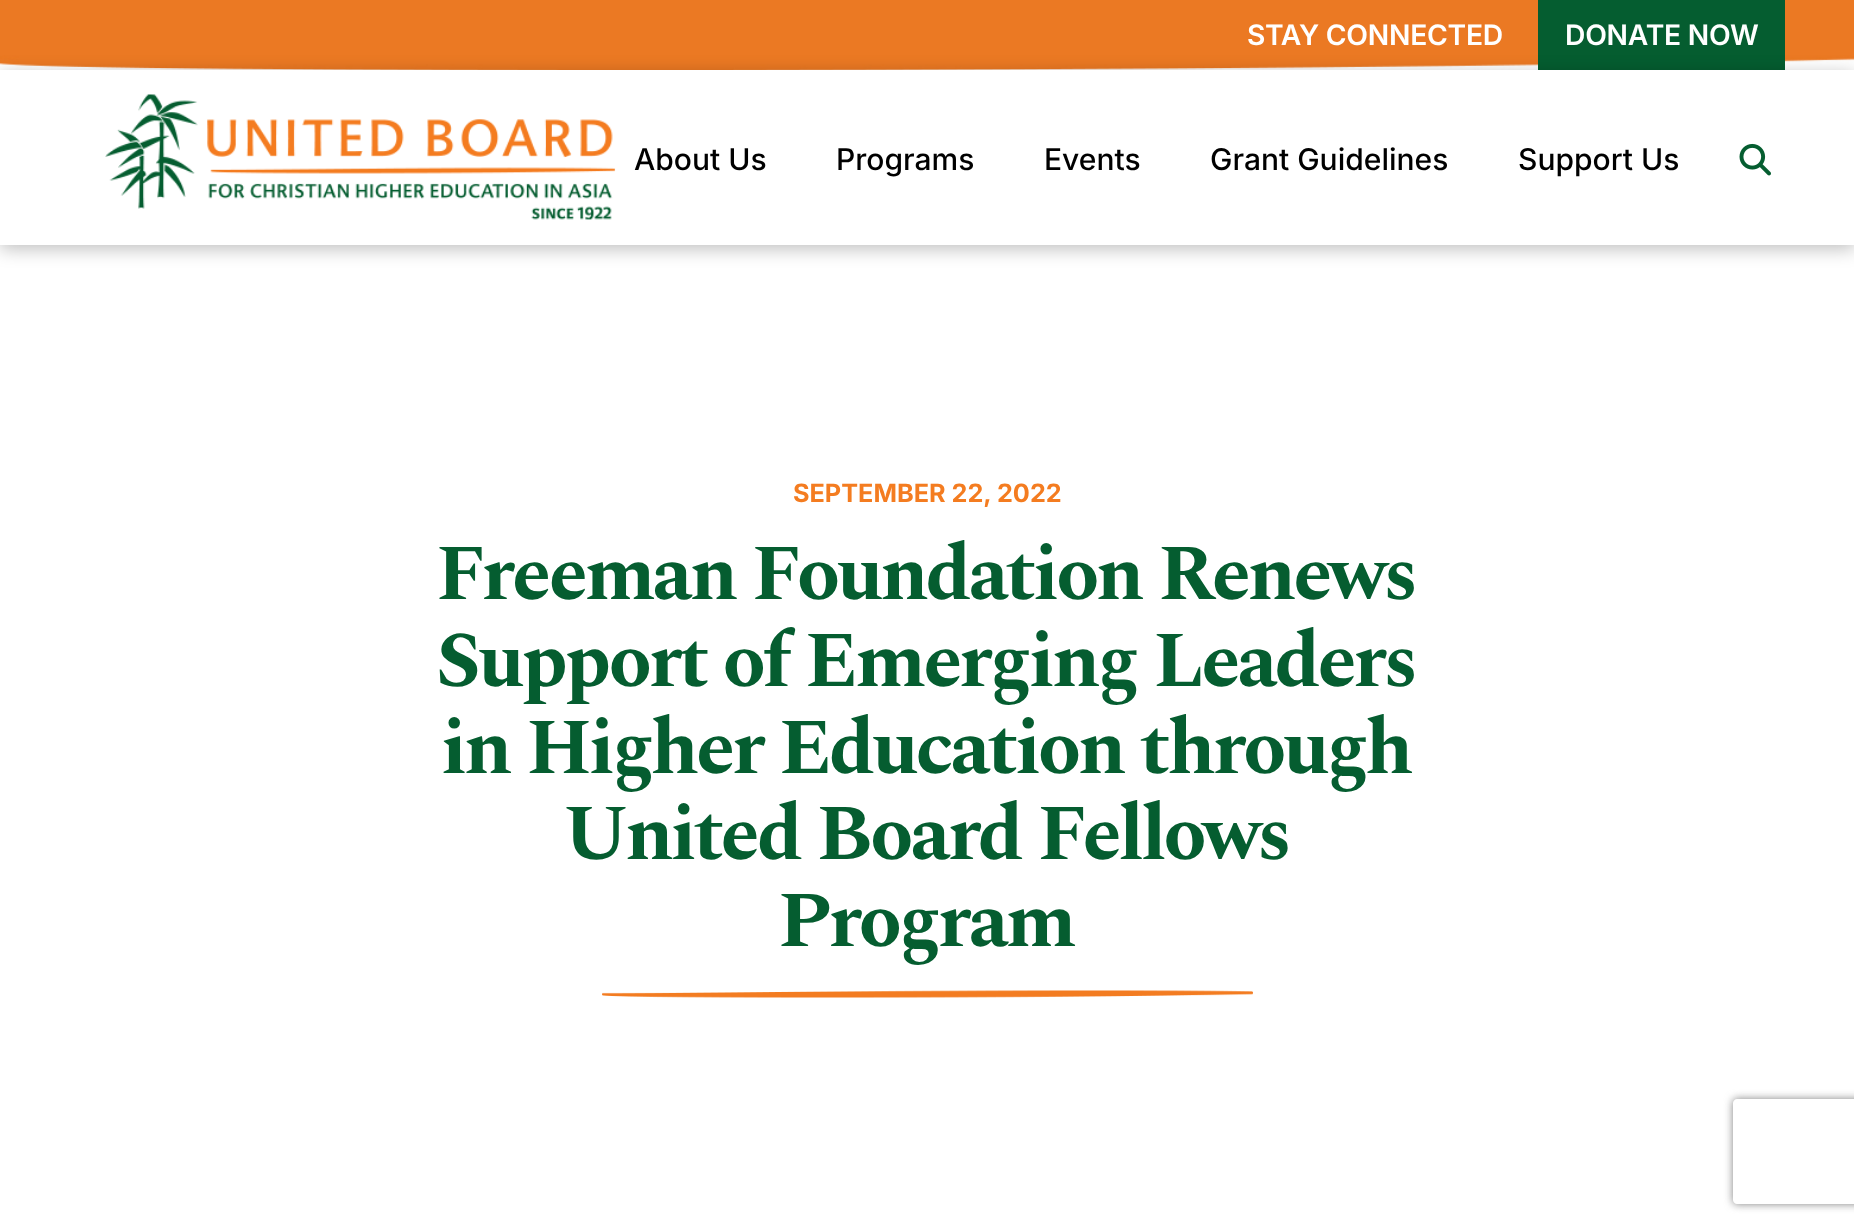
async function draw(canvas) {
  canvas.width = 1854;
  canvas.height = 1227;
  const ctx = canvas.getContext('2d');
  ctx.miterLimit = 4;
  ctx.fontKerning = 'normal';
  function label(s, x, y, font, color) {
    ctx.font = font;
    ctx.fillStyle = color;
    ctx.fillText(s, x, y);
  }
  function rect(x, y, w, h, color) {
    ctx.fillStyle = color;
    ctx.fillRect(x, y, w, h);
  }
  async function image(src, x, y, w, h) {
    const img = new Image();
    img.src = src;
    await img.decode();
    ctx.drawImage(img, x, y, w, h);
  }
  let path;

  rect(0, 0, 1854, 1227, '#fff');
  await image('assets/img1.png', 0, 0, 1854, 70);
  ctx.letterSpacing = '-0.25px';
  label('STAY CONNECTED', 1247, 45, '600 28.25px Inter', '#fff');
  rect(1538, 0, 247, 70, '#055d30');
  label('DONATE NOW', 1565, 45, '600 28.25px Inter', '#fff');
  ctx.save();
  path = new Path2D('M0 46H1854V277H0ZM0 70H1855V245H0Z');
  ctx.clip(path, 'evenodd');
  ctx.fillStyle = '#00000040';
  ctx.filter = 'blur(9px)';
  ctx.beginPath();
  ctx.rect(0, 74, 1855, 175);
  ctx.fill();
  ctx.filter = 'none';
  ctx.restore();
  await image('assets/img2.png', 105, 94, 511, 126);
  ctx.letterSpacing = '0px';
  label('About Us', 634, 170, '500 30px Inter', '#000');
  label('Programs', 836, 170, '500 30px Inter', '#000');
  label('Events', 1044, 170, '500 30px Inter', '#000');
  label('Grant Guidelines', 1210, 170, '500 30px Inter', '#000');
  label('Support Us', 1518, 170, '500 30px Inter', '#000');
  await image('assets/img3.png', 1739, 143, 32, 33);
  label('SEPTEMBER 22, 2022', 793, 502, 'bold 25.25px Inter', '#f47c20');
  ctx.letterSpacing = '-3.15px';
  label('Freeman Foundation Renews', 436, 599, 'bold 78.75px Spectral', '#055d30');
  label('Support of Emerging Leaders', 436, 686, 'bold 78.75px Spectral', '#055d30');
  label('in Higher Education through', 441, 773, 'bold 78.75px Spectral', '#055d30');
  label('United Board Fellows', 563, 859, 'bold 78.75px Spectral', '#055d30');
  label('Program', 778, 946, 'bold 78.75px Spectral', '#055d30');
  await image('assets/img4.png', 602, 990, 651, 8);
  ctx.save();
  path = new Path2D('M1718 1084H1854V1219H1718ZM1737 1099H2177C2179 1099 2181 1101 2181 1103V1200C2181 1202 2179 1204 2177 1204H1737C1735 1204 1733 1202 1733 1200V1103C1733 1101 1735 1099 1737 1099Z');
  ctx.clip(path, 'evenodd');
  ctx.fillStyle = '#808080';
  ctx.filter = 'blur(4.5px)';
  ctx.beginPath();
  ctx.roundRect(1733, 1099, 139, 105, 4);
  ctx.fill();
  ctx.filter = 'none';
  ctx.restore();
}

draw(document.querySelector('canvas'));
